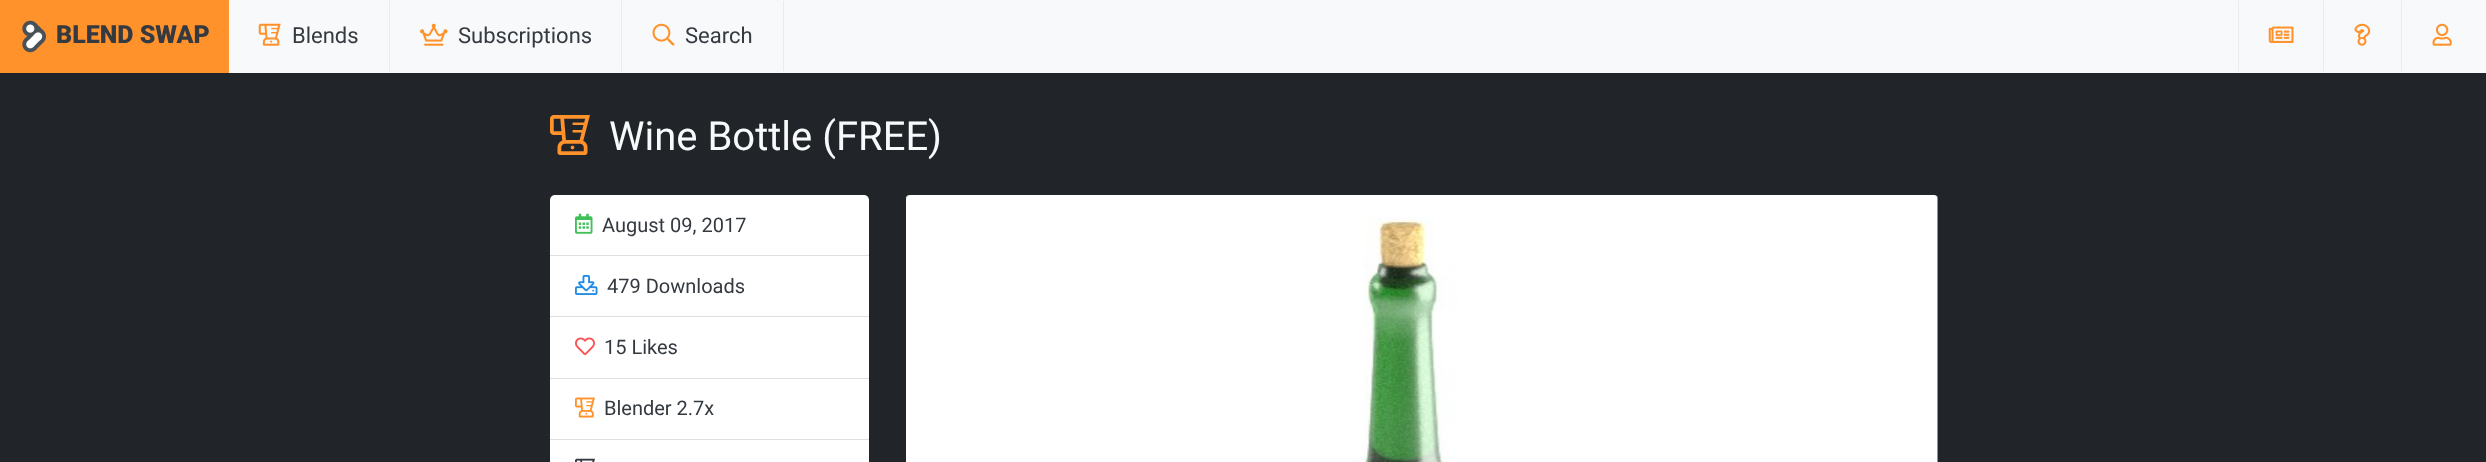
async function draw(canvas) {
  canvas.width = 2486;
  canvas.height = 462;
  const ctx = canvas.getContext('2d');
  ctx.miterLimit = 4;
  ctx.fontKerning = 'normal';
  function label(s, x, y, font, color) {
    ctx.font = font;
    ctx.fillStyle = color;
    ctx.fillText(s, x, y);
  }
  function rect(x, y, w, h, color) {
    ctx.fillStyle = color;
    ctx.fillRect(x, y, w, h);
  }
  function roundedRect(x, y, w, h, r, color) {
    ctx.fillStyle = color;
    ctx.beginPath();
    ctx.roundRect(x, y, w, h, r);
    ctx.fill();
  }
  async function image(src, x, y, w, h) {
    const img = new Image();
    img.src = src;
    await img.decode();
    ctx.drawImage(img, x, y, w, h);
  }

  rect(0, 0, 2486, 462, '#212529');
  rect(229, 0, 2257, 73, '#f8f9fa');
  rect(0, 0, 229, 73, '#ff922b');
  await image('assets/img1.png', 22, 20, 24, 33);
  label('BLEND SWAP', 56, 43, '900 25px Roboto', '#343a40');
  rect(389, 1, 1, 70, '#e9ecef');
  await image('assets/img2.png', 258, 23, 23, 23);
  label('Blends', 292, 43, '22px Roboto', '#343a40');
  rect(621, 1, 1, 70, '#e9ecef');
  await image('assets/img3.png', 420, 23, 28, 23);
  label('Subscriptions', 458, 43, '22px Roboto', '#343a40');
  rect(783, 1, 1, 70, '#e9ecef');
  await image('assets/img4.png', 652, 23, 23, 23);
  label('Search', 685, 43, '22px Roboto', '#343a40');
  rect(2238, 1, 1, 70, '#e9ecef');
  await image('assets/img5.png', 2268, 26, 26, 17);
  rect(2323, 1, 1, 70, '#e9ecef');
  await image('assets/img6.png', 2354, 23, 17, 23);
  rect(2401, 1, 1, 70, '#e9ecef');
  await image('assets/img7.png', 2432, 23, 20, 23);
  await image('assets/img8.png', 550, 115, 40, 40);
  label('Wine Bottle (FREE)', 609, 150, '40px Roboto', '#f8f9fa');
  ctx.fillStyle = '#fff';
  ctx.beginPath();
  ctx.roundRect(550, 195, 319, 61, [5, 5, 0, 0]);
  ctx.fill();
  await image('assets/img9.png', 575, 213, 18, 21);
  label('August 09, 2017', 602, 232, '20px Roboto', '#343a40');
  rect(550, 256, 319, 60, '#fff');
  rect(550, 255, 319, 1, '#dfdfdf');
  await image('assets/img10.png', 575, 275, 23, 20);
  label('479 Downloads', 607, 293, '20px Roboto', '#343a40');
  rect(550, 317, 319, 61, '#fff');
  rect(550, 316, 319, 1, '#dfdfdf');
  await image('assets/img11.png', 575, 337, 20, 18);
  label('15 Likes', 604, 354, '20px Roboto', '#343a40');
  rect(550, 379, 319, 60, '#fff');
  rect(550, 378, 319, 1, '#dfdfdf');
  await image('assets/img12.png', 575, 397, 20, 21);
  label('Blender 2.7x', 604, 415, '20px Roboto', '#343a40');
  rect(550, 440, 319, 22, '#fff');
  rect(550, 439, 319, 1, '#dfdfdf');
  await image('assets/img13.png', 575, 458, 20, 4);
  roundedRect(906, 195, 1032, 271, 4, '#393c3f');
  roundedRect(906, 195, 1032, 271, 4, '#80808040');
  roundedRect(906, 195, 1032, 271, 4, '#80808040');
  roundedRect(906, 195, 1032, 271, 4, '#80808040');
  await image('assets/img14.png', 906, 195, 1032, 267);
}

draw(document.querySelector('canvas'));
